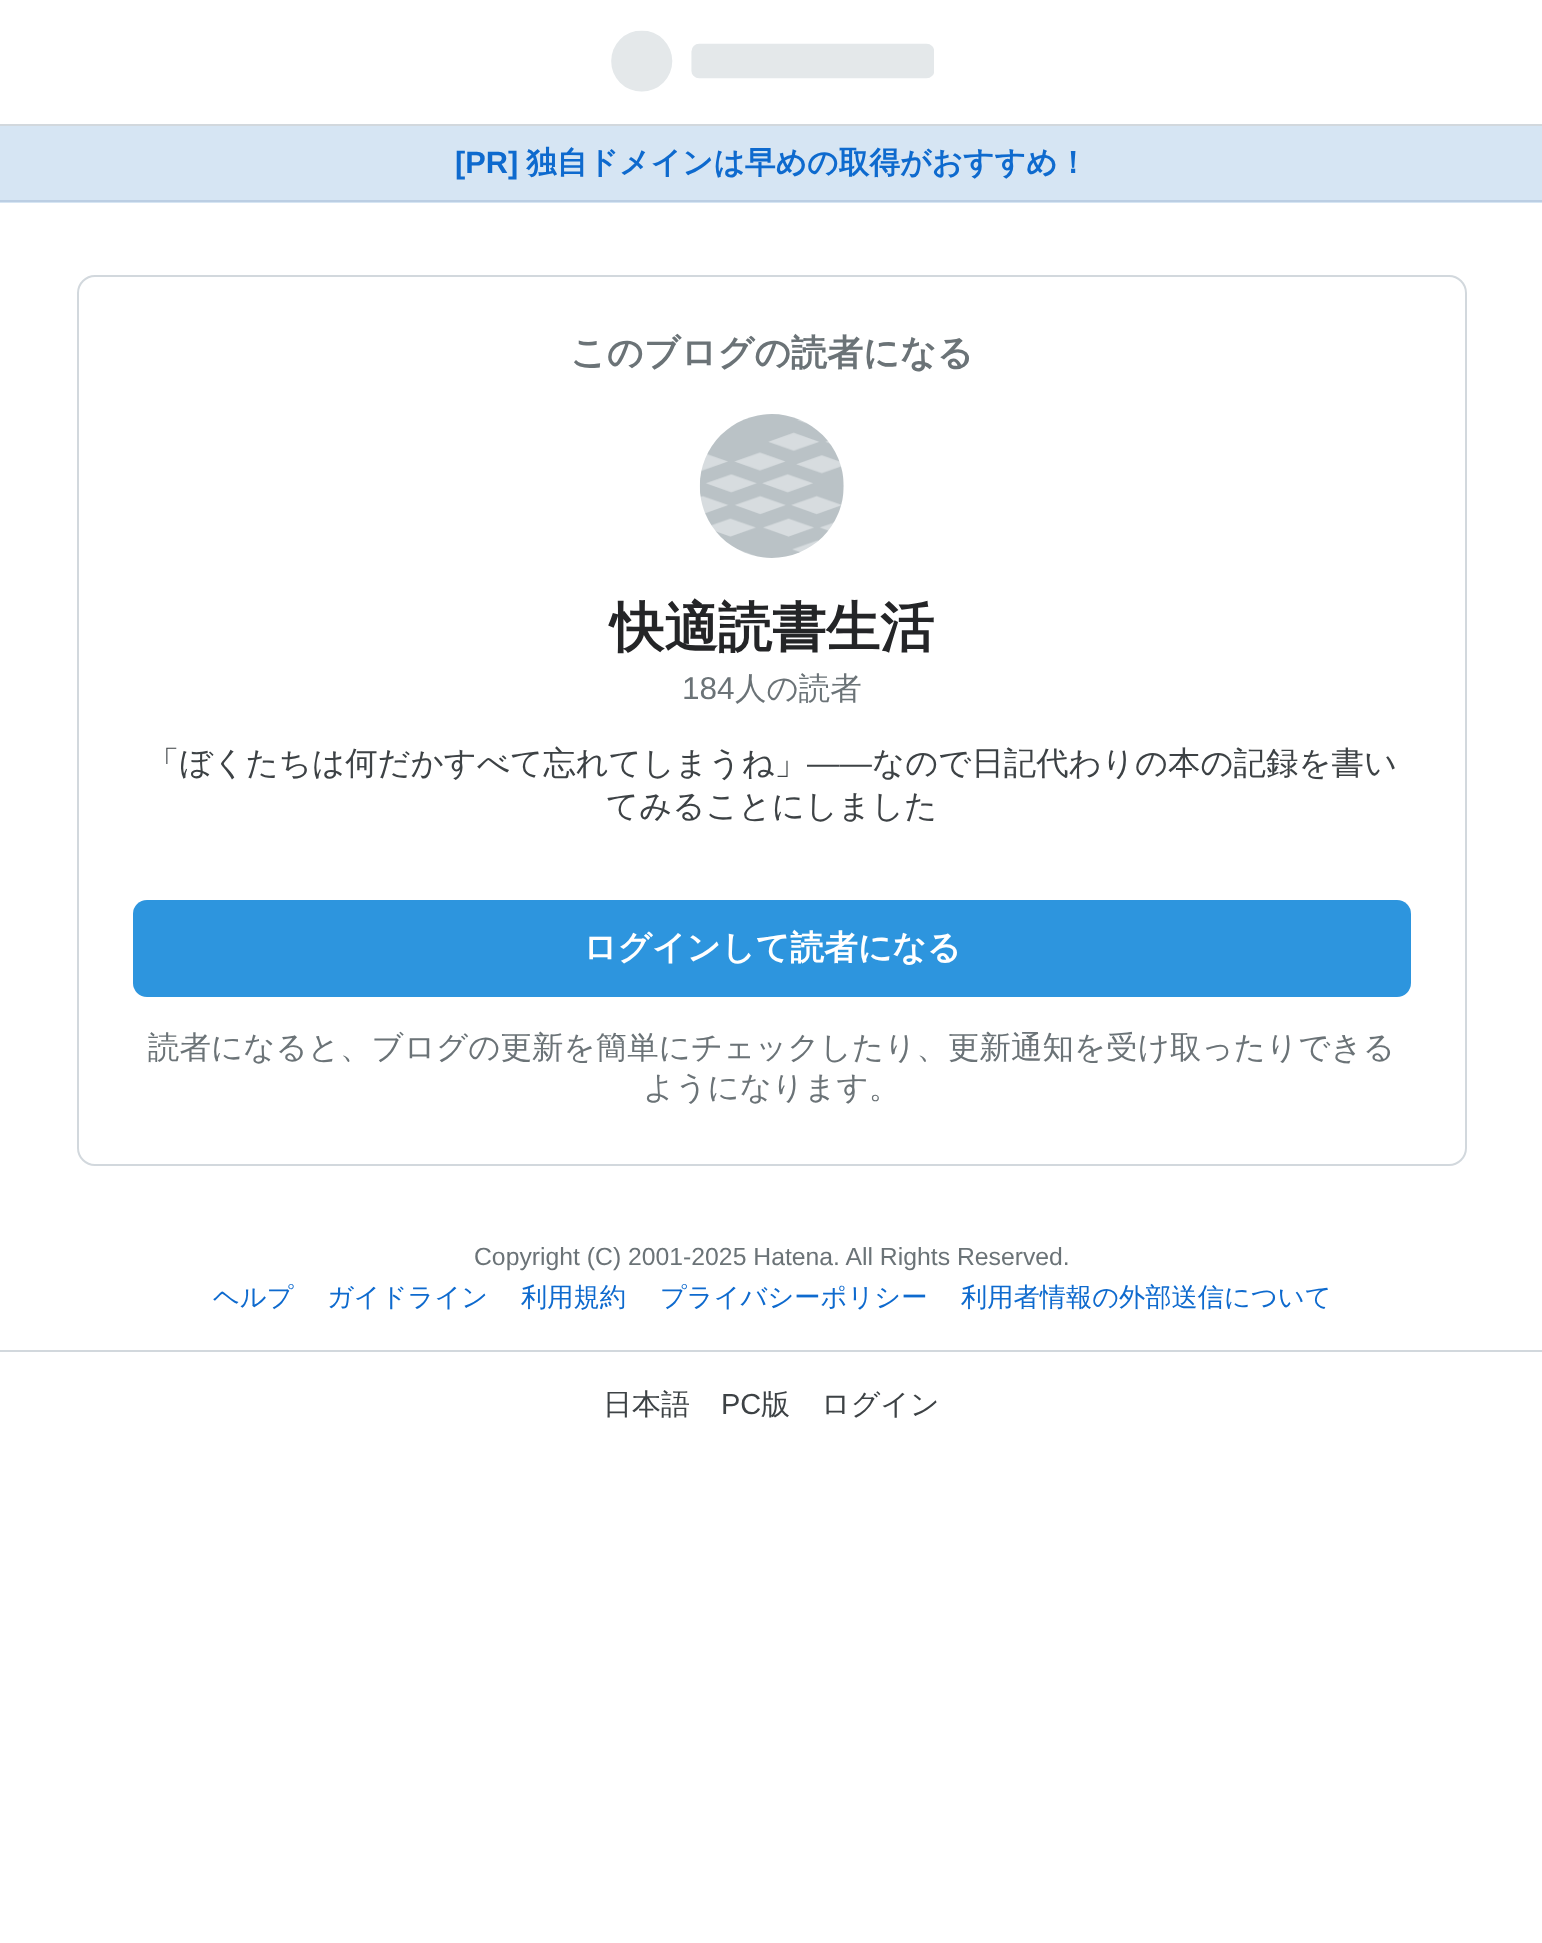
async function draw(canvas) {
  canvas.width = 1542;
  canvas.height = 1943;
  const ctx = canvas.getContext('2d');
  ctx.miterLimit = 4;
  ctx.fontKerning = 'normal';
  function label(s, x, y, font, color) {
    ctx.font = font;
    ctx.fillStyle = color;
    ctx.fillText(s, x, y);
  }
  function rect(x, y, w, h, color) {
    ctx.fillStyle = color;
    ctx.fillRect(x, y, w, h);
  }
  function roundedRect(x, y, w, h, r, color) {
    ctx.fillStyle = color;
    ctx.beginPath();
    ctx.roundRect(x, y, w, h, r);
    ctx.fill();
  }
  async function image(src, x, y, w, h) {
    const img = new Image();
    img.src = src;
    await img.decode();
    ctx.drawImage(img, x, y, w, h);
  }

  rect(0, 0, 1542, 1943, '#fff');
  rect(0, 124, 1542, 2, '#d2d8dd');
  await image('assets/img1.png', 611, 30, 323, 62);
  rect(0, 126, 1542, 77, '#d6e5f3');
  rect(0, 200, 1542, 2, '#bbcee3');
  label('[PR]', 455, 173, 'bold 30.75px Liberation Sans', '#0e6ace');
  label('独自ドメインは早めの取得がおすすめ！', 526, 173, 'bold 30.75px WenQuanYi Zen Hei', '#0e6ace');
  ctx.beginPath();
  ctx.roundRect(78, 276, 1388, 889, 17);
  ctx.strokeStyle = '#d2d8dd';
  ctx.lineWidth = 2;
  ctx.stroke();
  label('このブログの読者になる', 570, 365, 'bold 36px WenQuanYi Zen Hei', '#6b7377');
  await image('assets/img2.png', 699, 414, 145, 144);
  label('快適読書生活', 610, 646, 'bold 54px WenQuanYi Zen Hei', '#242527');
  label('184', 682, 699, '31.5px Liberation Sans', '#6b7377');
  label('人の読者', 735, 699, '500 31.5px WenQuanYi Zen Hei', '#6b7377');
  label('「ぼくたちは何だかすべて忘れてしまうね」', 147, 774, '500 32.4px WenQuanYi Zen Hei', '#3d4245');
  label('――', 807, 774, '32.4px Liberation Sans', '#3d4245');
  label('なので日記代わりの本の記録を書い', 872, 774, '500 32.4px WenQuanYi Zen Hei', '#3d4245');
  label('てみることにしました', 606, 817, '500 32.4px WenQuanYi Zen Hei', '#3d4245');
  roundedRect(133, 900, 1278, 97, 14, '#2d95de');
  label('ログインして読者になる', 583, 959, 'bold 33.75px WenQuanYi Zen Hei', '#fff');
  label('読者になると、ブログの更新を簡単にチェックしたり、更新通知を受け取ったりできる', 148, 1058, '500 31.5px WenQuanYi Zen Hei', '#6b7377');
  label('ようになります。', 643, 1098, '500 31.5px WenQuanYi Zen Hei', '#6b7377');
  label('Copyright (C) 2001-2025 Hatena. All Rights Reserved.', 474, 1265, '24.75px Liberation Sans', '#6b7377');
  label('ヘルプ', 213, 1306, '500 26.25px WenQuanYi Zen Hei', '#0e6ace');
  label('ガイドライン', 327, 1306, '500 26.25px WenQuanYi Zen Hei', '#0e6ace');
  label('利用規約', 521, 1306, '500 26.25px WenQuanYi Zen Hei', '#0e6ace');
  label('プライバシーポリシー', 660, 1306, '500 26.25px WenQuanYi Zen Hei', '#0e6ace');
  label('利用者情報の外部送信について', 961, 1306, '500 26.25px WenQuanYi Zen Hei', '#0e6ace');
  rect(0, 1350, 1542, 2, '#d2d8dd');
  label('日本語', 603, 1414, '500 29px WenQuanYi Zen Hei', '#3d4245');
  label('PC', 721, 1414, '29px Liberation Sans', '#3d4245');
  label('版', 761, 1414, '500 29px WenQuanYi Zen Hei', '#3d4245');
  label('ログイン', 821, 1414, '500 29px WenQuanYi Zen Hei', '#3d4245');
}

draw(document.querySelector('canvas'));
